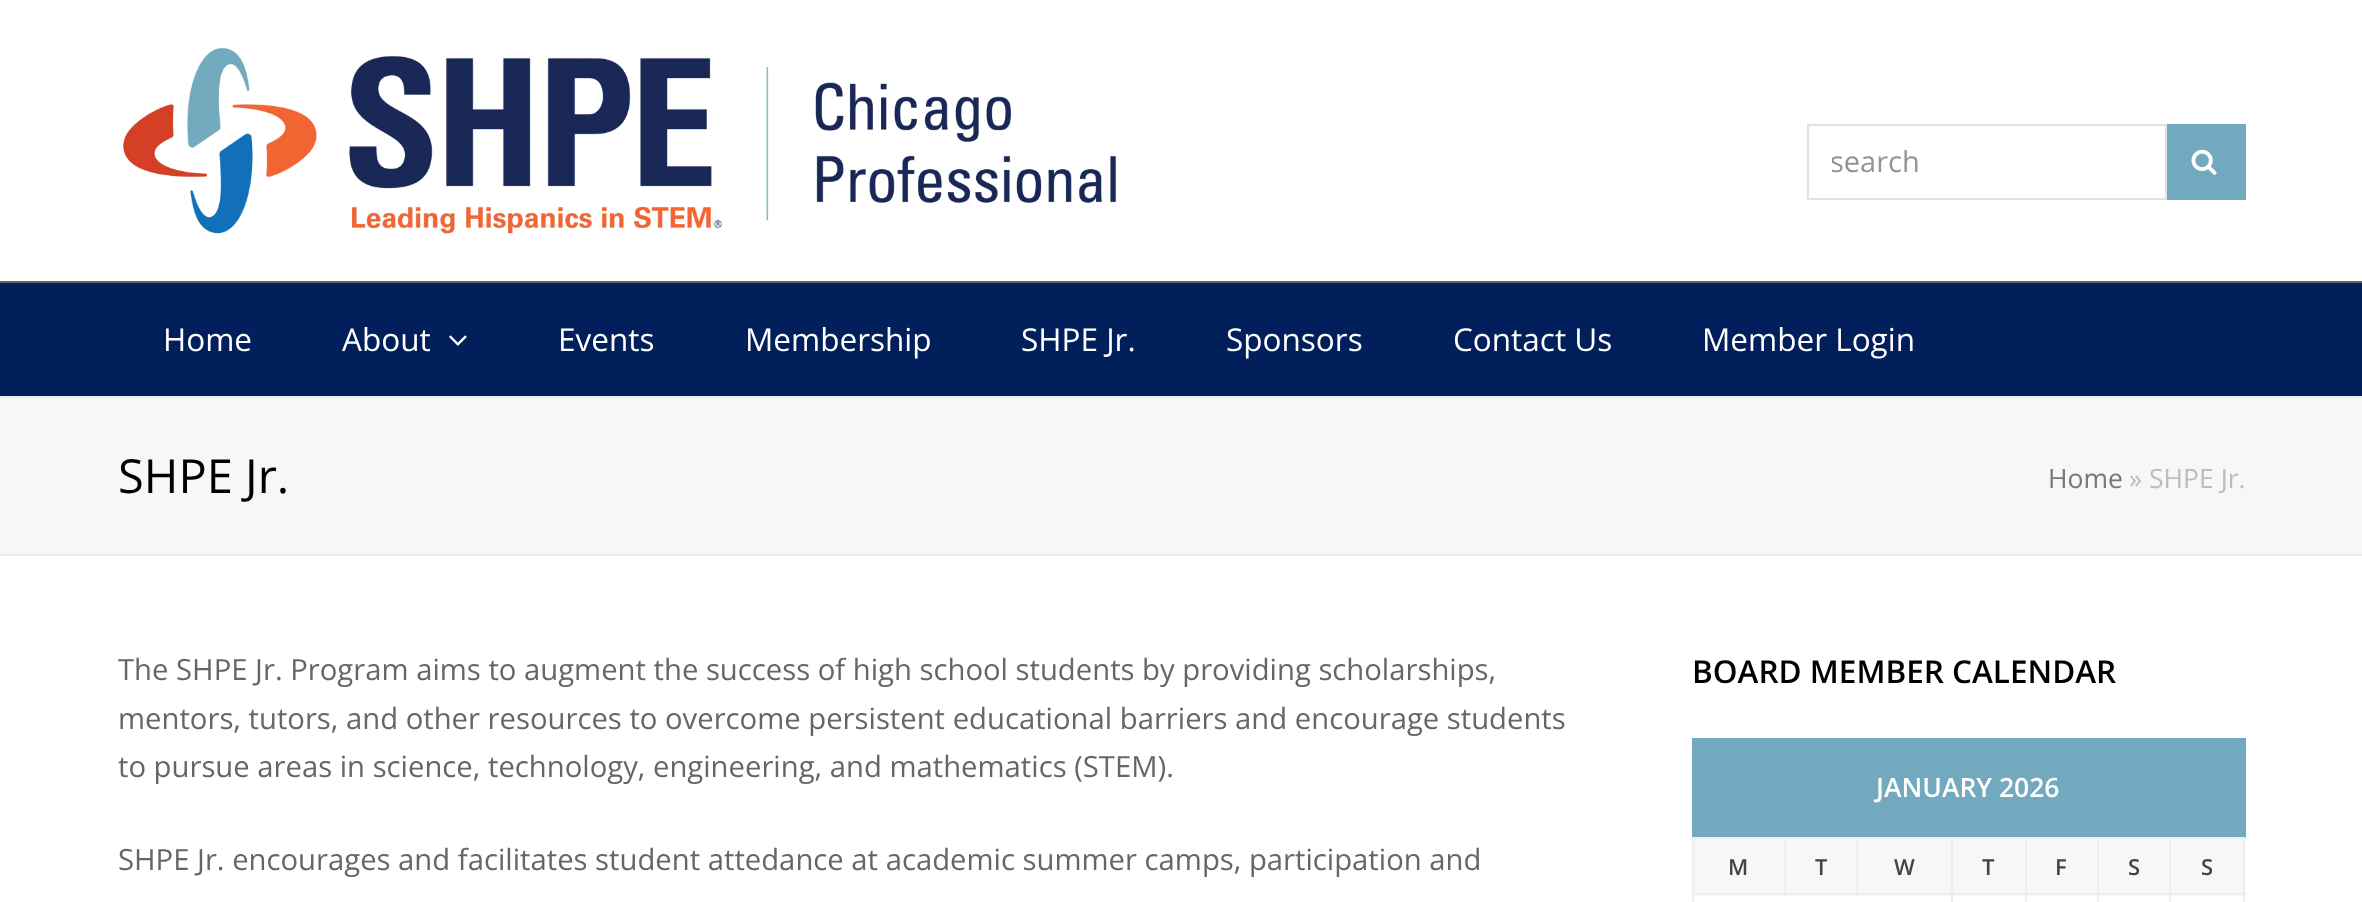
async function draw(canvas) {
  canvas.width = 2362;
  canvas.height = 902;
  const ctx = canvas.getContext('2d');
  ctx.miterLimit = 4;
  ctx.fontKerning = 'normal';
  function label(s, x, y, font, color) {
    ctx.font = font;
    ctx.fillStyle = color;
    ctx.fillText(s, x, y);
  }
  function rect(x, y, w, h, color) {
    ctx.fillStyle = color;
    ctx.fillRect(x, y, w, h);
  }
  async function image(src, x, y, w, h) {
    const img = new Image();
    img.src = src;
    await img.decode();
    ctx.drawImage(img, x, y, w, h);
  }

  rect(0, 0, 2362, 902, '#fff');
  await image('assets/img1.png', 123, 47, 994, 187);
  ctx.strokeStyle = '#e1e1e1';
  ctx.lineWidth = 2;
  ctx.strokeRect(1808, 125, 358, 74);
  ctx.save();
  ctx.beginPath();
  ctx.rect(1832, 142, 310, 40);
  ctx.clip();
  label('search', 1830, 172, '29px Open Sans', '#949494');
  ctx.restore();
  rect(2167, 124, 79, 76, '#72a9be');
  await image('assets/img2.png', 2191, 149, 26, 26);
  rect(0, 283, 2362, 113, '#001f5b');
  rect(0, 281, 2362, 2, '#626366');
  label('Home', 163, 351, '31.5px Open Sans', '#fff');
  label('About', 342, 351, '31.5px Open Sans', '#fff');
  await image('assets/img3.png', 449, 335, 18, 11);
  label('Events', 558, 351, '31.5px Open Sans', '#fff');
  label('Membership', 745, 351, '31.5px Open Sans', '#fff');
  label('SHPE Jr.', 1021, 351, '31.5px Open Sans', '#fff');
  label('Sponsors', 1226, 351, '31.5px Open Sans', '#fff');
  label('Contact Us', 1453, 351, '31.5px Open Sans', '#fff');
  label('Member Login', 1702, 351, '31.5px Open Sans', '#fff');
  rect(0, 398, 2362, 156, '#f7f7f7');
  rect(0, 396, 2362, 2, '#eee');
  rect(0, 554, 2362, 2, '#eee');
  label('SHPE Jr.', 118, 493, '47px Open Sans', '#000');
  label('Home', 2048, 488, '26.5px Open Sans', '#777');
  label('» SHPE Jr.', 2129, 488, '26.5px Open Sans', '#bcbcbc');
  label('The SHPE Jr. Program aims to augment the success of high school students by providing scholarships,', 118, 680, '29.25px Open Sans', '#666');
  label('mentors, tutors, and other resources to overcome persistent educational barriers and encourage students', 118, 729, '29.25px Open Sans', '#666');
  label('to pursue areas in science, technology, engineering, and mathematics (STEM).', 118, 777, '29.25px Open Sans', '#666');
  label('SHPE Jr. encourages and facilitates student attedance at academic summer camps, participation and', 118, 870, '29.25px Open Sans', '#666');
  label('BOARD MEMBER CALENDAR', 1692, 683, '600 31.5px Open Sans', '#000');
  rect(1692, 738, 554, 99, '#72a9be');
  label('JANUARY 2026', 1876, 797, '600 26.5px Open Sans', '#fff');
  rect(1694, 839, 549, 57, '#f7f7f7');
  rect(2169, 837, 77, 2, '#eee');
  rect(2169, 893, 77, 2, '#eee');
  rect(2169, 893, 2, 9, '#eee');
  rect(2097, 893, 74, 2, '#eee');
  rect(2169, 837, 2, 59, '#eee');
  rect(2097, 837, 74, 2, '#eee');
  rect(2097, 893, 2, 9, '#eee');
  rect(2025, 893, 74, 2, '#eee');
  rect(2097, 837, 2, 59, '#eee');
  rect(2025, 837, 74, 2, '#eee');
  rect(2025, 893, 2, 9, '#eee');
  rect(1951, 893, 76, 2, '#eee');
  rect(2025, 837, 2, 59, '#eee');
  rect(1951, 837, 76, 2, '#eee');
  rect(1951, 893, 2, 9, '#eee');
  rect(1692, 893, 261, 2, '#eee');
  rect(1951, 837, 2, 59, '#eee');
  rect(1856, 837, 97, 2, '#eee');
  rect(1856, 837, 2, 59, '#eee');
  rect(1784, 837, 75, 2, '#eee');
  rect(1784, 837, 2, 59, '#eee');
  rect(1692, 837, 95, 2, '#eee');
  rect(1692, 893, 2, 9, '#eee');
  rect(1692, 837, 2, 59, '#eee');
  label('M', 1728, 875, '600 22px Open Sans', '#444');
  label('T', 1815, 875, '600 22px Open Sans', '#444');
  label('W', 1894, 875, '600 22px Open Sans', '#444');
  label('T', 1982, 875, '600 22px Open Sans', '#444');
  label('F', 2055, 875, '600 22px Open Sans', '#444');
  label('S', 2128, 875, '600 22px Open Sans', '#444');
  rect(2243, 893, 2, 9, '#eee');
  rect(2243, 837, 2, 59, '#eee');
  label('S', 2201, 875, '600 22px Open Sans', '#444');
}

draw(document.querySelector('canvas'));
